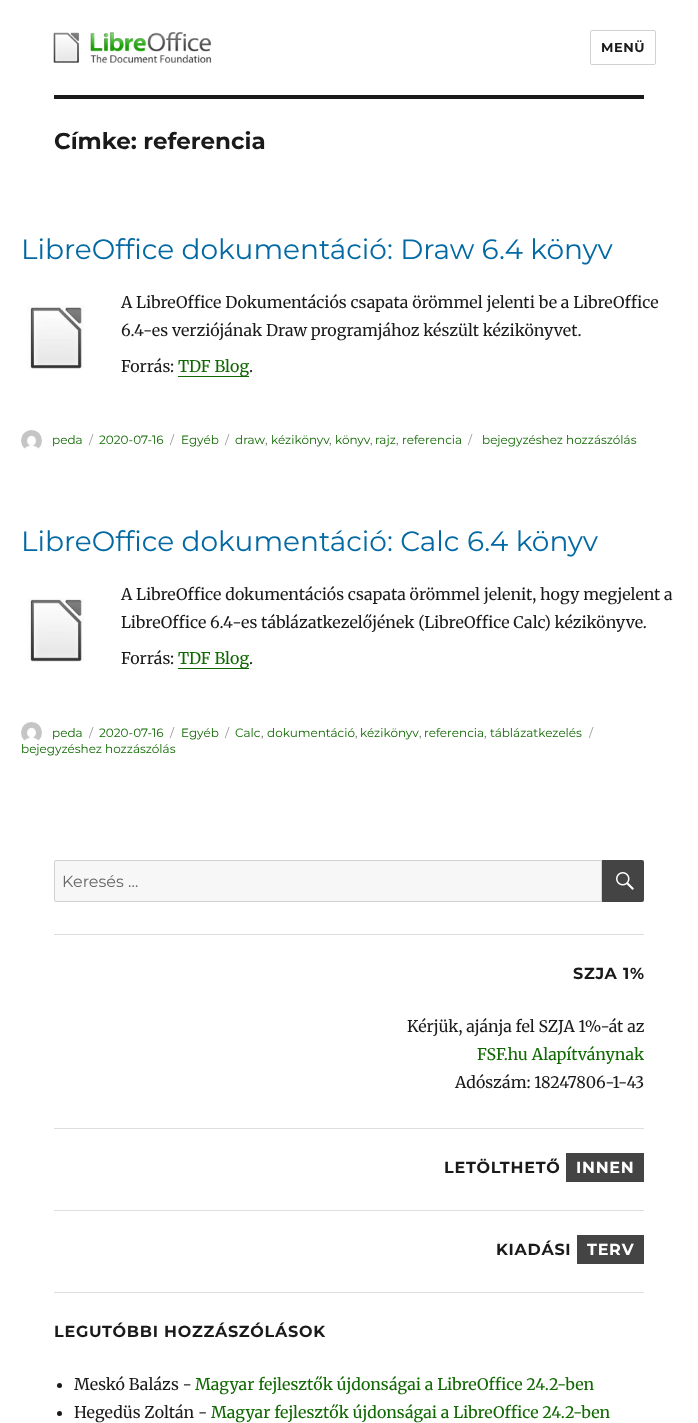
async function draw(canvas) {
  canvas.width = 698;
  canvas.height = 1423;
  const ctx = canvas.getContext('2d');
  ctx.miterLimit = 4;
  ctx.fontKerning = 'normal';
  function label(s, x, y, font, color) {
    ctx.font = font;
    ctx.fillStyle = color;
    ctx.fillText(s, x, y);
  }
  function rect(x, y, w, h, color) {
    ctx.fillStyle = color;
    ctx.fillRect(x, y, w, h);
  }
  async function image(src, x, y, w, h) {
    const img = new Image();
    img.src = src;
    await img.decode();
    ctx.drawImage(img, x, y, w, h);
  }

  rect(0, 0, 698, 1423, '#fff');
  await image('assets/img1.png', 53, 32, 159, 31);
  ctx.beginPath();
  ctx.roundRect(590.5, 30.5, 65, 34, 1.5);
  ctx.strokeStyle = '#d1d1d1';
  ctx.stroke();
  ctx.letterSpacing = '0.5px';
  label('MENÜ', 601, 52, 'bold 13px Montserrat', '#1a1a1a');
  rect(54, 95, 590, 4, '#1a1a1a');
  ctx.letterSpacing = '0px';
  label('Címke: referencia', 54, 149, 'bold 23px Montserrat', '#1a1a1a');
  label('LibreOffice dokumentáció: Draw 6.4 könyv', 21, 259, '28px Montserrat', '#0369a3');
  label('A LibreOffice Dokumentációs csapata örömmel jelenti be a LibreOffice', 121, 308, '16px Merriweather', '#1a1a1a');
  await image('assets/img2.png', 27, 305, 57, 64);
  label('6.4-es verziójának Draw programjához készült kézikönyvet.', 121, 336, '16px Merriweather', '#1a1a1a');
  label('Forrás:', 121, 372, '16px Merriweather', '#1a1a1a');
  rect(178, 376, 71, 1, '#106802');
  label('TDF Blog', 178, 372, '16px Merriweather', '#106802');
  label('.', 249, 372, '16px Merriweather', '#1a1a1a');
  await image('assets/img3.png', 21, 430, 21, 19);
  label('peda', 52, 444, '12px Montserrat', '#106802');
  label('/', 89, 444, '12px Montserrat', '#959595');
  label('2020-07-16', 99, 444, '12px Montserrat', '#106802');
  label('/', 170, 444, '12px Montserrat', '#959595');
  label('Egyéb', 181, 444, '12px Montserrat', '#106802');
  label('/', 225, 444, '12px Montserrat', '#959595');
  label('draw', 235, 444, '12px Montserrat', '#106802');
  label('kézikönyv', 271, 444, '12px Montserrat', '#106802');
  label('könyv', 335, 444, '12px Montserrat', '#106802');
  label('rajz', 375, 444, '12px Montserrat', '#106802');
  label('referencia', 402, 444, '12px Montserrat', '#106802');
  label('/', 468, 444, '12px Montserrat', '#959595');
  label(',', 265, 444, '12px Montserrat', '#686868');
  label(',', 329, 444, '12px Montserrat', '#686868');
  label(',', 370, 444, '12px Montserrat', '#686868');
  label(',', 396, 444, '12px Montserrat', '#686868');
  label('bejegyzéshez hozzászólás', 482, 444, '12px Montserrat', '#106802');
  label('LibreOffice dokumentáció: Calc 6.4 könyv', 21, 551, '28px Montserrat', '#0369a3');
  label('A LibreOffice dokumentációs csapata örömmel jelenit, hogy megjelent a', 121, 600, '16px Merriweather', '#1a1a1a');
  await image('assets/img4.png', 27, 598, 57, 64);
  label('LibreOffice 6.4-es táblázatkezelőjének (LibreOffice Calc) kézikönyve.', 121, 628, '16px Merriweather', '#1a1a1a');
  label('Forrás:', 121, 664, '16px Merriweather', '#1a1a1a');
  rect(178, 668, 71, 1, '#106802');
  label('TDF Blog', 178, 664, '16px Merriweather', '#106802');
  label('.', 249, 664, '16px Merriweather', '#1a1a1a');
  await image('assets/img3.png', 21, 722, 21, 19);
  label('peda', 52, 737, '12px Montserrat', '#106802');
  label('/', 89, 737, '12px Montserrat', '#959595');
  label('2020-07-16', 99, 737, '12px Montserrat', '#106802');
  label('/', 170, 737, '12px Montserrat', '#959595');
  label('Egyéb', 181, 737, '12px Montserrat', '#106802');
  label('/', 225, 737, '12px Montserrat', '#959595');
  label('Calc', 235, 737, '12px Montserrat', '#106802');
  label(',', 261, 737, '12px Montserrat', '#686868');
  label('dokumentáció', 267, 737, '12px Montserrat', '#106802');
  label(',', 355, 737, '12px Montserrat', '#686868');
  label('kézikönyv', 360, 737, '12px Montserrat', '#106802');
  label('referencia', 424, 737, '12px Montserrat', '#106802');
  label('táblázatkezelés', 490, 737, '12px Montserrat', '#106802');
  label('/', 589, 737, '12px Montserrat', '#959595');
  label(',', 419, 737, '12px Montserrat', '#686868');
  label(',', 484, 737, '12px Montserrat', '#686868');
  label('bejegyzéshez hozzászólás', 21, 753, '12px Montserrat', '#106802');
  ctx.fillStyle = '#f7f7f7';
  ctx.beginPath();
  ctx.roundRect(54.5, 860.5, 547, 41, [1.5, 0, 0, 1.5]);
  ctx.fill();
  ctx.stroke();
  label('Keresés …', 62, 887, '16px Montserrat', '#686868');
  ctx.fillStyle = '#444';
  ctx.beginPath();
  ctx.roundRect(602, 860, 42, 42, [0, 2, 2, 0]);
  ctx.fill();
  await image('assets/img5.png', 616, 872, 18, 18);
  rect(54, 934, 590, 1, '#ddd');
  ctx.letterSpacing = '0.75px';
  label('SZJA 1%', 573, 979, 'bold 16px Montserrat', '#1a1a1a');
  ctx.letterSpacing = '0px';
  label('Kérjük, ajánja fel SZJA 1%-át az', 407, 1032, '16px Merriweather', '#1a1a1a');
  label('FSF.hu Alapítványnak', 477, 1060, '16px Merriweather', '#106802');
  label('Adószám: 18247806-1-43', 455, 1088, '16px Merriweather', '#1a1a1a');
  rect(54, 1128, 590, 1, '#ddd');
  ctx.letterSpacing = '0.75px';
  label('LETÖLTHETŐ', 444, 1173, 'bold 16px Montserrat', '#1a1a1a');
  rect(566, 1153, 78, 29, '#444');
  label('INNEN', 576, 1173, 'bold 16px Montserrat', '#fff');
  rect(54, 1210, 590, 1, '#ddd');
  label('KIADÁSI', 496, 1255, 'bold 16px Montserrat', '#1a1a1a');
  rect(577, 1235, 67, 29, '#444');
  label('TERV', 587, 1255, 'bold 16px Montserrat', '#fff');
  rect(54, 1292, 590, 1, '#ddd');
  label('LEGUTÓBBI HOZZÁSZÓLÁSOK', 54, 1337, 'bold 16px Montserrat', '#1a1a1a');
  ctx.beginPath();
  ctx.arc(59.5, 1385.5, 2.5, 0, 2 * Math.PI);
  ctx.fill();
  ctx.letterSpacing = '0px';
  label('Meskó Balázs -', 74, 1390, '16px Merriweather', '#1a1a1a');
  label('Magyar fejlesztők újdonságai a LibreOffice 24.2-ben', 195, 1390, '16px Merriweather', '#106802');
  ctx.fillStyle = '#1a1a1a';
  ctx.beginPath();
  ctx.arc(59.5, 1413.5, 2.5, 0, 2 * Math.PI);
  ctx.fill();
  label('Hegedüs Zoltán -', 74, 1418, '16px Merriweather', '#1a1a1a');
  label('Magyar fejlesztők újdonságai a LibreOffice 24.2-ben', 211, 1418, '16px Merriweather', '#106802');
}

draw(document.querySelector('canvas'));
